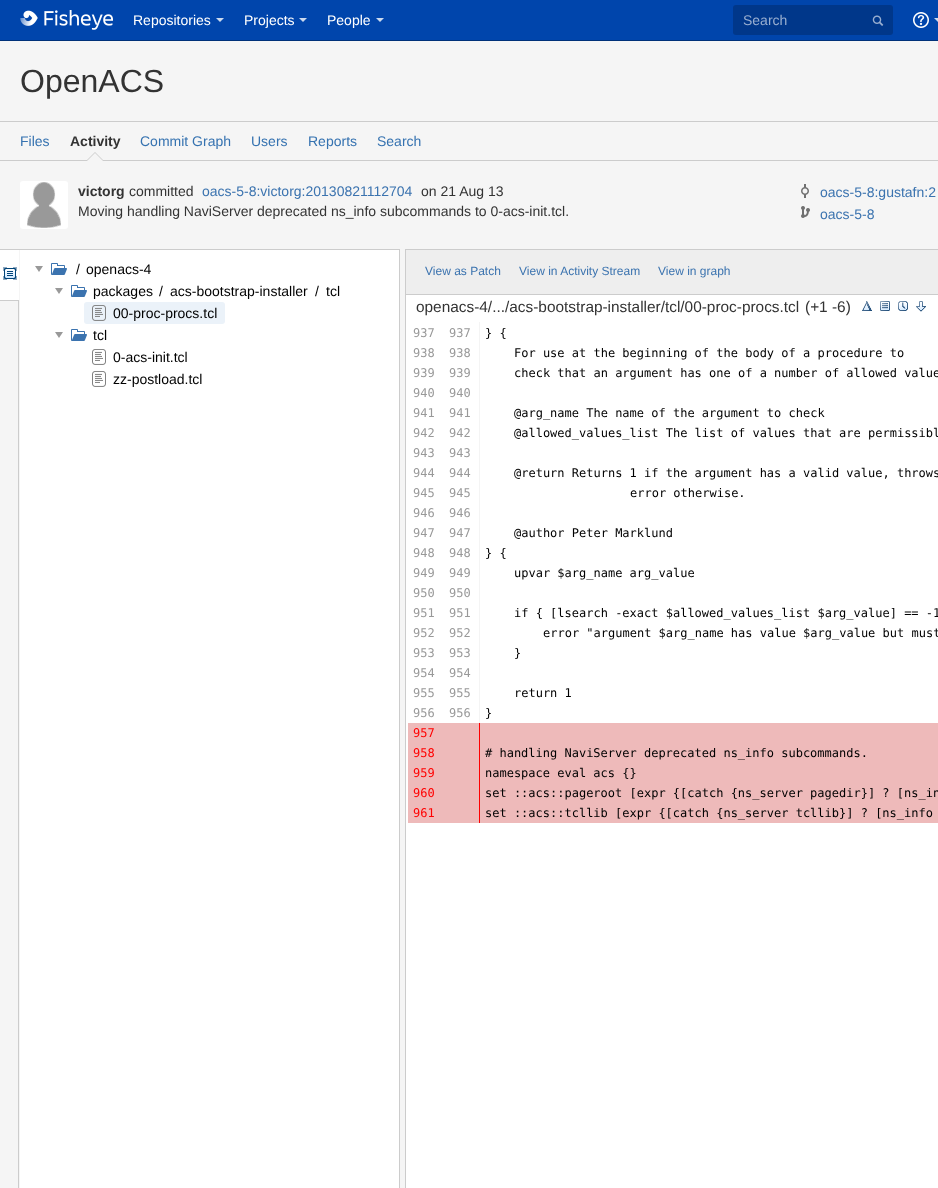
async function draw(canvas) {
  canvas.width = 938;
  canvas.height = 1188;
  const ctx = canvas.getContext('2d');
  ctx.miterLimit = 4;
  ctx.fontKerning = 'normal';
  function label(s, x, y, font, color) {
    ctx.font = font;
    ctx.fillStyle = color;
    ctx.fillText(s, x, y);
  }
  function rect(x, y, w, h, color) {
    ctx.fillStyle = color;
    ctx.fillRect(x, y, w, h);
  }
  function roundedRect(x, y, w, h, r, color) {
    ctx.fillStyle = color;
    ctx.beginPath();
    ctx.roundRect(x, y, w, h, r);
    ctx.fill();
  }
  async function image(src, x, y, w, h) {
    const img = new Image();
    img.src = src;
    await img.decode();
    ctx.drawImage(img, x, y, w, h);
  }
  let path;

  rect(0, 0, 938, 1188, '#f5f5f5');
  rect(0, 0, 938, 40, '#0045ac');
  rect(0, 40, 938, 1, '#003179');
  await image('assets/img1.png', 20, 10, 93, 20);
  label('Repositories', 133, 25, '14px Liberation Sans', '#fff');
  ctx.fillStyle = '#ccdaee';
  path = new Path2D('M216 18H224L220 22Z');
  ctx.fill(path);
  label('Projects', 244, 25, '14px Liberation Sans', '#fff');
  ctx.fillStyle = '#ccdaee';
  path = new Path2D('M299 18H307L303 22Z');
  ctx.fill(path);
  label('People', 327, 25, '14px Liberation Sans', '#fff');
  ctx.fillStyle = '#ccdaee';
  path = new Path2D('M376 18H384L380 22Z');
  ctx.fill(path);
  roundedRect(733, 5, 160, 30, 3, '#00378a');
  label('Search', 743, 25, '14px Liberation Sans', '#99afd0');
  await image('assets/img2.png', 872, 15, 12, 11);
  await image('assets/img3.png', 913, 12, 16, 16);
  ctx.fillStyle = '#ccdaee';
  path = new Path2D('M934 18H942L938 22Z');
  ctx.fill(path);
  label('OpenACS', 20, 92, '32px Liberation Sans', '#333');
  rect(0, 121, 938, 1, '#ccc');
  rect(0, 160, 938, 1, '#ccc');
  label('Files', 20, 146, '14px Liberation Sans', '#3572b0');
  label('Activity', 70, 146, 'bold 14px Liberation Sans', '#333');
  ctx.fillStyle = '#ccc';
  path = new Path2D('M103 160H87L95 152Z');
  ctx.fill(path);
  ctx.fillStyle = '#f5f5f5';
  path = new Path2D('M103 161H87L95 153Z');
  ctx.fill(path);
  label('Commit Graph', 140, 146, '14px Liberation Sans', '#3572b0');
  label('Users', 251, 146, '14px Liberation Sans', '#3572b0');
  label('Reports', 308, 146, '14px Liberation Sans', '#3572b0');
  label('Search', 377, 146, '14px Liberation Sans', '#3572b0');
  roundedRect(20, 181, 48, 48, 3, '#fff');
  await image('assets/img4.png', 27, 182, 34, 46);
  label('victorg', 78, 196, 'bold 14px Liberation Sans', '#333');
  label('committed', 129, 196, '14px Liberation Sans', '#333');
  label('oacs-5-8:victorg:20130821112704', 202, 196, '14px Liberation Sans', '#3b73af');
  label('on 21 Aug 13', 421, 196, '14px Liberation Sans', '#333');
  label('Moving handling NaviServer deprecated ns_info subcommands to 0-acs-init.tcl.', 78, 216, '14px Liberation Sans', '#333');
  await image('assets/img5.png', 801, 184, 8, 14);
  label('oacs-5-8:gustafn:2', 820, 197, '14px Liberation Sans', '#3b73af');
  await image('assets/img6.png', 801, 206, 9, 12);
  label('oacs-5-8', 820, 219, '14px Liberation Sans', '#3b73af');
  rect(0, 249, 18, 1, '#ccc');
  rect(18, 249, 1, 939, '#ccc');
  rect(0, 250, 19, 50, '#fff');
  await image('assets/img7.png', 3, 267, 14, 13);
  rect(0, 300, 19, 1, '#ccc');
  rect(20, 250, 379, 938, '#fff');
  rect(399, 249, 1, 939, '#ccc');
  rect(19, 249, 380, 1, '#ccc');
  ctx.fillStyle = '#999';
  path = new Path2D('M35 266H43L39 272Z');
  ctx.fill(path);
  await image('assets/img8.png', 51, 263, 16, 12);
  label('/', 76, 274, '14px Liberation Sans', '#000');
  label('openacs-4', 86, 274, '14px Liberation Sans', '#000');
  ctx.fillStyle = '#999';
  path = new Path2D('M55 288H63L59 294Z');
  ctx.fill(path);
  await image('assets/img8.png', 71, 285, 16, 12);
  label('packages', 93, 296, '14px Liberation Sans', '#000');
  label('/', 159, 296, '14px Liberation Sans', '#000');
  label('acs-bootstrap-installer', 170, 296, '14px Liberation Sans', '#000');
  label('/', 315, 296, '14px Liberation Sans', '#000');
  label('tcl', 326, 296, '14px Liberation Sans', '#000');
  roundedRect(84, 302, 141, 22, 3, '#ebf2f9');
  await image('assets/img9.png', 92, 305, 14, 16);
  label('00-proc-procs.tcl', 113, 318, '14px Liberation Sans', '#000');
  ctx.fillStyle = '#999';
  path = new Path2D('M55 332H63L59 338Z');
  ctx.fill(path);
  await image('assets/img8.png', 71, 329, 16, 12);
  label('tcl', 93, 340, '14px Liberation Sans', '#000');
  await image('assets/img10.png', 92, 349, 14, 16);
  label('0-acs-init.tcl', 113, 362, '14px Liberation Sans', '#000');
  await image('assets/img10.png', 92, 371, 14, 16);
  label('zz-postload.tcl', 113, 384, '14px Liberation Sans', '#000');
  rect(406, 295, 532, 893, '#fff');
  rect(405, 249, 1, 939, '#ccc');
  rect(406, 250, 532, 44, '#eee');
  rect(406, 249, 532, 1, '#ccc');
  rect(406, 294, 532, 1, '#ccc');
  label('View as Patch', 425, 275, '12px Liberation Sans', '#3b73af');
  label('View in Activity Stream', 519, 275, '12px Liberation Sans', '#3b73af');
  label('View in graph', 658, 275, '12px Liberation Sans', '#3b73af');
  label('openacs-4/.../acs-bootstrap-installer/tcl/00-proc-procs.tcl', 416, 312, '15.4px Liberation Sans', '#333');
  label('(+1 -6)', 805, 312, '15.4px Liberation Sans', '#333');
  await image('assets/img11.png', 862, 301, 10, 10);
  await image('assets/img12.png', 880, 301, 10, 10);
  await image('assets/img13.png', 898, 301, 10, 10);
  await image('assets/img14.png', 916, 301, 10, 11);
  label('937', 413, 337, '12px DejaVu Sans Mono', '#999');
  label('937', 449, 337, '12px DejaVu Sans Mono', '#999');
  label('} {', 485, 337, '12px DejaVu Sans Mono', '#000');
  label('938', 413, 357, '12px DejaVu Sans Mono', '#999');
  label('938', 449, 357, '12px DejaVu Sans Mono', '#999');
  label('For use at the beginning of the body of a procedure to', 514, 357, '12px DejaVu Sans Mono', '#000');
  label('939', 413, 377, '12px DejaVu Sans Mono', '#999');
  label('939', 449, 377, '12px DejaVu Sans Mono', '#999');
  label('check that an argument has one of a number of allowed value', 514, 377, '12px DejaVu Sans Mono', '#000');
  label('940', 413, 397, '12px DejaVu Sans Mono', '#999');
  label('940', 449, 397, '12px DejaVu Sans Mono', '#999');
  label('941', 413, 417, '12px DejaVu Sans Mono', '#999');
  label('941', 449, 417, '12px DejaVu Sans Mono', '#999');
  label('@arg_name The name of the argument to check', 514, 417, '12px DejaVu Sans Mono', '#000');
  label('942', 413, 437, '12px DejaVu Sans Mono', '#999');
  label('942', 449, 437, '12px DejaVu Sans Mono', '#999');
  label('@allowed_values_list The list of values that are permissibl', 514, 437, '12px DejaVu Sans Mono', '#000');
  label('943', 413, 457, '12px DejaVu Sans Mono', '#999');
  label('943', 449, 457, '12px DejaVu Sans Mono', '#999');
  label('944', 413, 477, '12px DejaVu Sans Mono', '#999');
  label('944', 449, 477, '12px DejaVu Sans Mono', '#999');
  label('@return Returns 1 if the argument has a valid value, throws', 514, 477, '12px DejaVu Sans Mono', '#000');
  label('945', 413, 497, '12px DejaVu Sans Mono', '#999');
  label('945', 449, 497, '12px DejaVu Sans Mono', '#999');
  label('error otherwise.', 630, 497, '12px DejaVu Sans Mono', '#000');
  label('946', 413, 517, '12px DejaVu Sans Mono', '#999');
  label('946', 449, 517, '12px DejaVu Sans Mono', '#999');
  label('947', 413, 537, '12px DejaVu Sans Mono', '#999');
  label('947', 449, 537, '12px DejaVu Sans Mono', '#999');
  label('@author Peter Marklund', 514, 537, '12px DejaVu Sans Mono', '#000');
  label('948', 413, 557, '12px DejaVu Sans Mono', '#999');
  label('948', 449, 557, '12px DejaVu Sans Mono', '#999');
  label('} {', 485, 557, '12px DejaVu Sans Mono', '#000');
  label('949', 413, 577, '12px DejaVu Sans Mono', '#999');
  label('949', 449, 577, '12px DejaVu Sans Mono', '#999');
  label('upvar $arg_name arg_value', 514, 577, '12px DejaVu Sans Mono', '#000');
  label('950', 413, 597, '12px DejaVu Sans Mono', '#999');
  label('950', 449, 597, '12px DejaVu Sans Mono', '#999');
  label('951', 413, 617, '12px DejaVu Sans Mono', '#999');
  label('951', 449, 617, '12px DejaVu Sans Mono', '#999');
  label('if { [lsearch -exact $allowed_values_list $arg_value] == -1', 514, 617, '12px DejaVu Sans Mono', '#000');
  label('952', 413, 637, '12px DejaVu Sans Mono', '#999');
  label('952', 449, 637, '12px DejaVu Sans Mono', '#999');
  label('error "argument $arg_name has value $arg_value but must', 543, 637, '12px DejaVu Sans Mono', '#000');
  label('953', 413, 657, '12px DejaVu Sans Mono', '#999');
  label('953', 449, 657, '12px DejaVu Sans Mono', '#999');
  label('}', 514, 657, '12px DejaVu Sans Mono', '#000');
  label('954', 413, 677, '12px DejaVu Sans Mono', '#999');
  label('954', 449, 677, '12px DejaVu Sans Mono', '#999');
  label('955', 413, 697, '12px DejaVu Sans Mono', '#999');
  label('955', 449, 697, '12px DejaVu Sans Mono', '#999');
  label('return 1', 514, 697, '12px DejaVu Sans Mono', '#000');
  label('956', 413, 717, '12px DejaVu Sans Mono', '#999');
  label('956', 449, 717, '12px DejaVu Sans Mono', '#999');
  rect(479, 722, 1, 101, '#f00');
  rect(479, 322, 1, 401, '#f4f4f4');
  label('}', 485, 717, '12px DejaVu Sans Mono', '#000');
  rect(408, 723, 71, 20, '#eebaba');
  label('957', 413, 737, '12px DejaVu Sans Mono', '#f00');
  rect(480, 723, 458, 100, '#eebaba');
  rect(408, 743, 71, 20, '#eebaba');
  label('958', 413, 757, '12px DejaVu Sans Mono', '#f00');
  label('# handling NaviServer deprecated ns_info subcommands.', 485, 757, '12px DejaVu Sans Mono', '#000');
  rect(408, 763, 71, 20, '#eebaba');
  label('959', 413, 777, '12px DejaVu Sans Mono', '#f00');
  label('namespace eval acs {}', 485, 777, '12px DejaVu Sans Mono', '#000');
  rect(408, 783, 71, 20, '#eebaba');
  label('960', 413, 797, '12px DejaVu Sans Mono', '#f00');
  label('set ::acs::pageroot [expr {[catch {ns_server pagedir}] ? [ns_in', 485, 797, '12px DejaVu Sans Mono', '#000');
  rect(408, 803, 71, 20, '#eebaba');
  label('961', 413, 817, '12px DejaVu Sans Mono', '#f00');
  label('set ::acs::tcllib [expr {[catch {ns_server tcllib}] ? [ns_info', 485, 817, '12px DejaVu Sans Mono', '#000');
}

draw(document.querySelector('canvas'));
